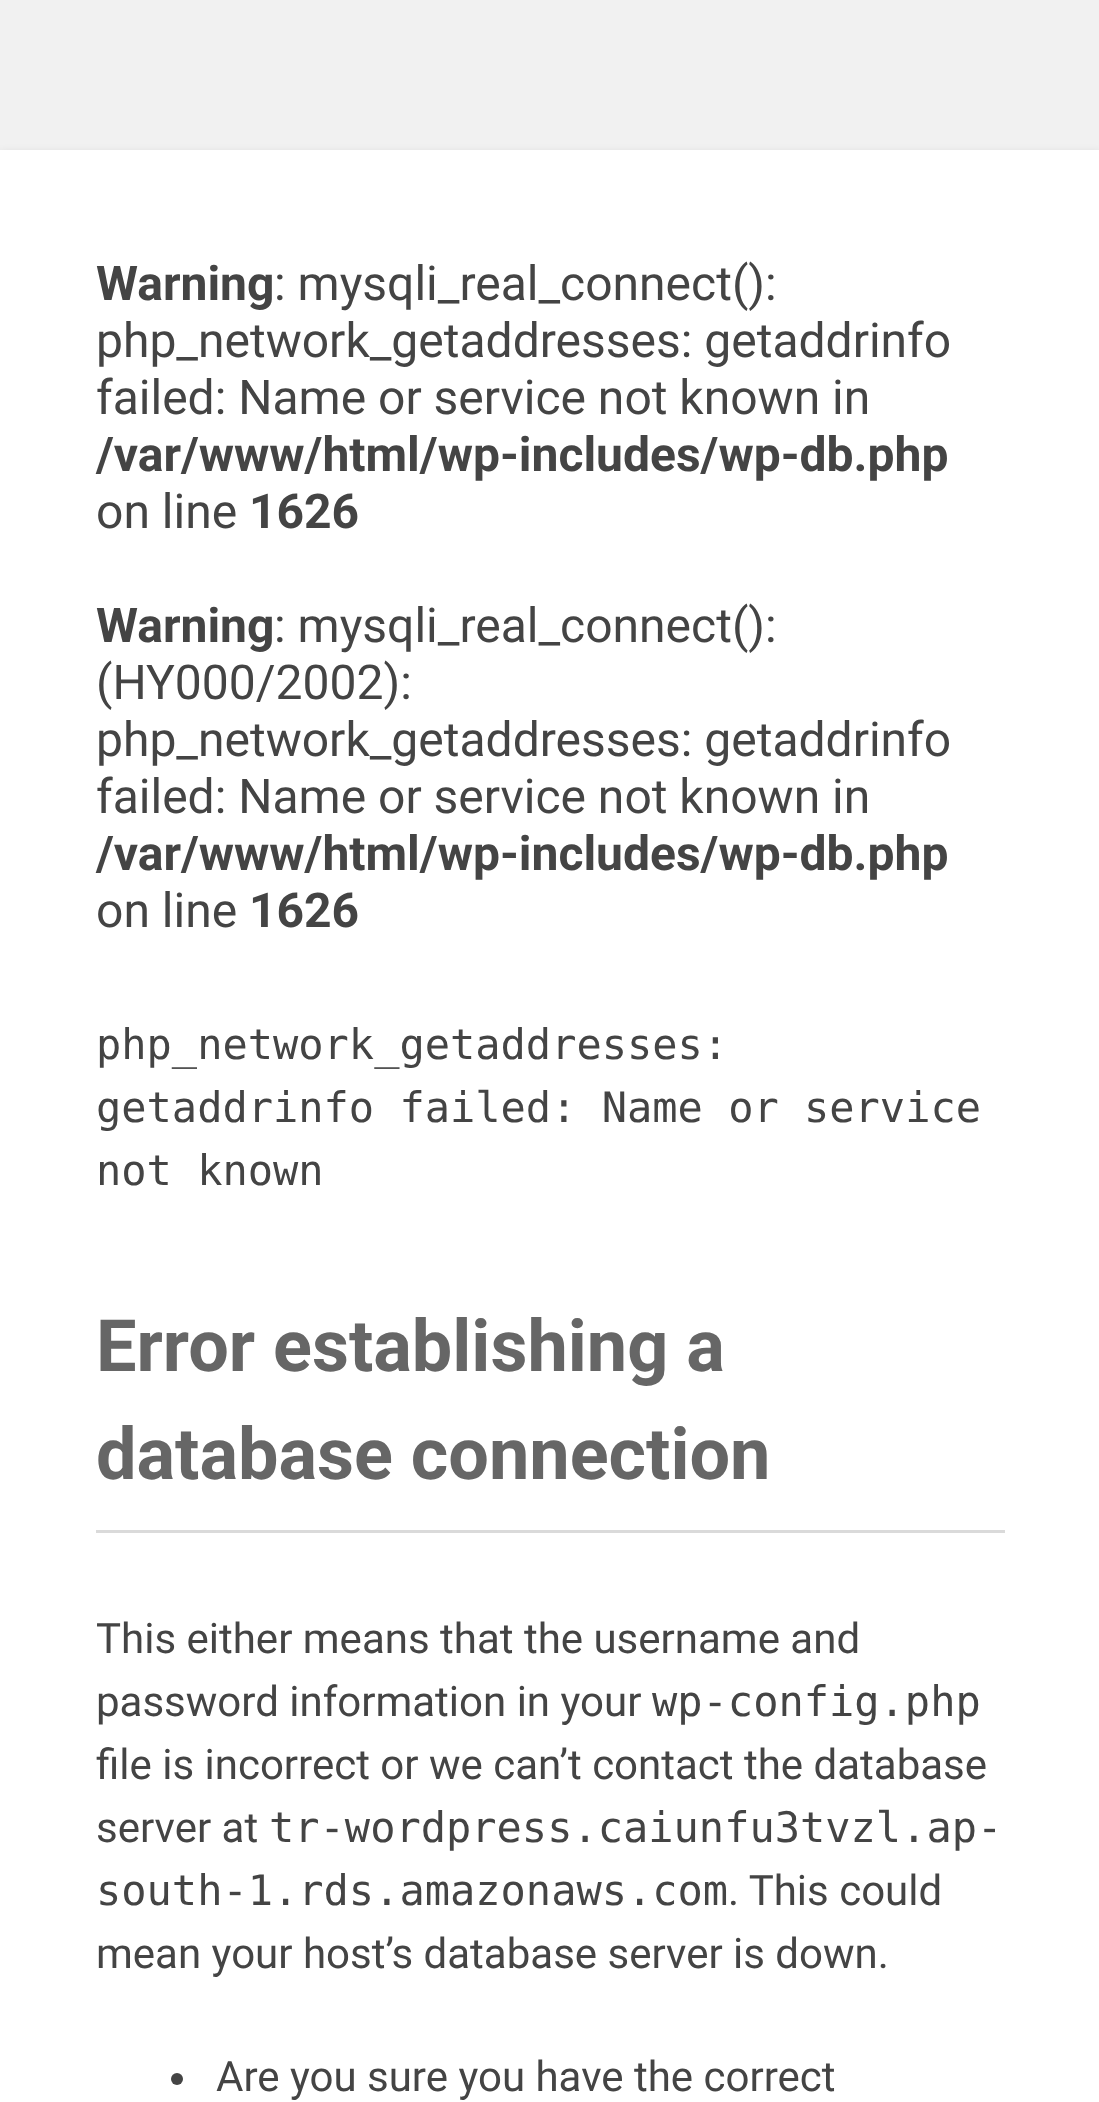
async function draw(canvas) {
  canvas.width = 1099;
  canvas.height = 2102;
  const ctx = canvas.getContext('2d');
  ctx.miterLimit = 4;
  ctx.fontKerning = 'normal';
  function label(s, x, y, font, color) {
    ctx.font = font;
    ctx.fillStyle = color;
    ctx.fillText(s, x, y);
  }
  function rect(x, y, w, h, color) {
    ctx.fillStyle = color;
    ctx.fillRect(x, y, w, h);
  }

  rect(0, 0, 1099, 2102, '#f1f1f1');
  ctx.fillStyle = '#00000021';
  ctx.filter = 'blur(4.5px)';
  ctx.beginPath();
  ctx.rect(0, 153, 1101, 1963);
  ctx.fill();
  ctx.filter = 'none';
  rect(0, 150, 1099, 1952, '#fff');
  label('Warning', 96, 300, 'bold 48px Roboto', '#444');
  label(': mysqli_real_connect():', 274, 300, '48px Roboto', '#444');
  label('php_network_getaddresses: getaddrinfo', 96, 357, '48px Roboto', '#444');
  label('failed: Name or service not known in', 96, 414, '48px Roboto', '#444');
  label('/var/www/html/wp-includes/wp-db.php', 96, 471, 'bold 48px Roboto', '#444');
  label('on line', 96, 528, '48px Roboto', '#444');
  label('1626', 249, 528, 'bold 48px Roboto', '#444');
  label('Warning', 96, 642, 'bold 48px Roboto', '#444');
  label(': mysqli_real_connect():', 274, 642, '48px Roboto', '#444');
  label('(HY000/2002):', 96, 699, '48px Roboto', '#444');
  label('php_network_getaddresses: getaddrinfo', 96, 756, '48px Roboto', '#444');
  label('failed: Name or service not known in', 96, 813, '48px Roboto', '#444');
  label('/var/www/html/wp-includes/wp-db.php', 96, 870, 'bold 48px Roboto', '#444');
  label('on line', 96, 927, '48px Roboto', '#444');
  label('1626', 249, 927, 'bold 48px Roboto', '#444');
  label('php_network_getaddresses:', 96, 1059, '42px DejaVu Sans Mono', '#444');
  label('getaddrinfo failed: Name or service', 96, 1122, '42px DejaVu Sans Mono', '#444');
  label('not known', 96, 1185, '42px DejaVu Sans Mono', '#444');
  rect(96, 1530, 909, 3, '#dadada');
  label('Error establishing a', 96, 1371, 'bold 72px Roboto', '#666');
  label('database connection', 96, 1479, 'bold 72px Roboto', '#666');
  label('This either means that the username and', 96, 1653, '42px Roboto', '#444');
  label('password information in your', 96, 1716, '42px Roboto', '#444');
  label('wp-config.php', 652, 1716, '42px DejaVu Sans Mono', '#444');
  label('file is incorrect or we can’t contact the database', 96, 1779, '42px Roboto', '#444');
  label('server at', 96, 1842, '42px Roboto', '#444');
  label('tr-wordpress.caiunfu3tvzl.ap-', 269, 1842, '42px DejaVu Sans Mono', '#444');
  label('south-1.rds.amazonaws.com', 96, 1905, '42px DejaVu Sans Mono', '#444');
  label('. This could', 728, 1905, '42px Roboto', '#444');
  label('mean your host’s database server is down.', 96, 1968, '42px Roboto', '#444');
  ctx.beginPath();
  ctx.arc(177, 2079, 6, 0, 2 * Math.PI);
  ctx.fill();
  label('Are you sure you have the correct', 216, 2091, '42px Roboto', '#444');
}

draw(document.querySelector('canvas'));
